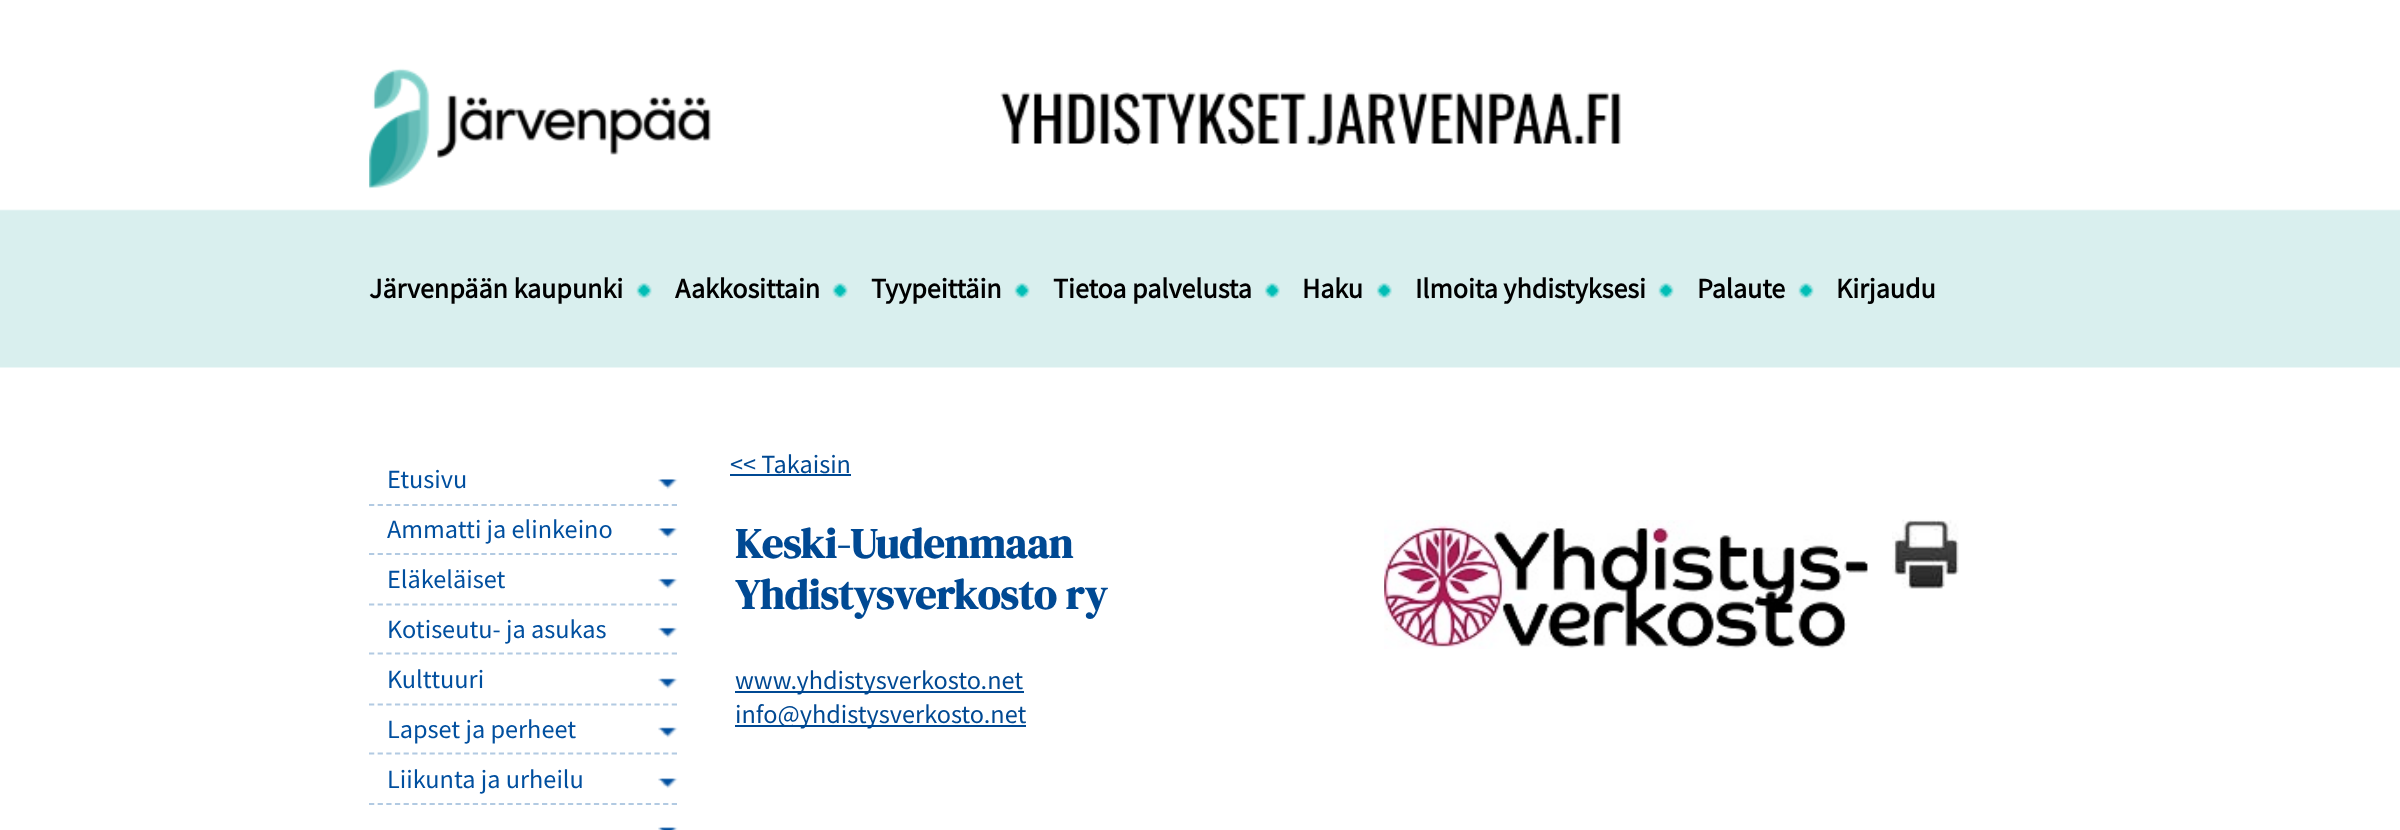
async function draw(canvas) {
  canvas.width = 2400;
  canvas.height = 830;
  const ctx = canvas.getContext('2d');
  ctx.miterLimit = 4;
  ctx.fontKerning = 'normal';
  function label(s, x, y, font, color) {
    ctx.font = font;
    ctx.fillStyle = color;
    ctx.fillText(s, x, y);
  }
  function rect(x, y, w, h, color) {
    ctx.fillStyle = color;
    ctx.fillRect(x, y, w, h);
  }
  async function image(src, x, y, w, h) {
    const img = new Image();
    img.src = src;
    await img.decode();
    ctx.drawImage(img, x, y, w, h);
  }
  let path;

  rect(0, 0, 2400, 830, '#fff');
  await image('assets/img1.png', 0, 209, 2400, 159);
  await image('assets/img2.png', 1000, 92, 621, 54);
  await image('assets/img3.png', 369, 68, 342, 121);
  label('Järvenpään kaupunki', 369, 298, 'bold 28px Source Sans Pro', '#000');
  await image('assets/img4.png', 636, 283, 16, 15);
  label('Aakkosittain', 675, 298, 'bold 28px Source Sans Pro', '#000');
  await image('assets/img4.png', 832, 283, 16, 15);
  label('Tyypeittäin', 871, 298, 'bold 28px Source Sans Pro', '#000');
  await image('assets/img5.png', 1014, 283, 16, 15);
  label('Tietoa palvelusta', 1053, 298, 'bold 28px Source Sans Pro', '#000');
  await image('assets/img6.png', 1264, 283, 16, 15);
  label('Haku', 1302, 298, 'bold 28px Source Sans Pro', '#000');
  await image('assets/img6.png', 1376, 283, 16, 15);
  label('Ilmoita yhdistyksesi', 1415, 298, 'bold 28px Source Sans Pro', '#000');
  await image('assets/img4.png', 1658, 283, 16, 15);
  label('Palaute', 1697, 298, 'bold 28px Source Sans Pro', '#000');
  await image('assets/img5.png', 1798, 283, 16, 15);
  label('Kirjaudu', 1836, 298, 'bold 28px Source Sans Pro', '#000');
  path = new Path2D('M369 505H677');
  ctx.strokeStyle = '#b2cae2';
  ctx.lineWidth = 1.8;
  ctx.setLineDash([5.25, 3.4]);
  ctx.stroke(path);
  label('Etusivu', 387, 488, '26.25px Source Sans Pro', '#004f9f');
  await image('assets/img7.png', 658, 479, 20, 11);
  path = new Path2D('M369 554H677');
  ctx.stroke(path);
  label('Ammatti ja elinkeino', 387, 538, '26.25px Source Sans Pro', '#004f9f');
  await image('assets/img7.png', 658, 528, 20, 11);
  path = new Path2D('M369 604.5H677');
  ctx.stroke(path);
  label('Eläkeläiset', 387, 588, '26.25px Source Sans Pro', '#004f9f');
  await image('assets/img8.png', 658, 578, 20, 11);
  path = new Path2D('M369 653.5H677');
  ctx.stroke(path);
  label('Kotiseutu- ja asukas', 387, 638, '26.25px Source Sans Pro', '#004f9f');
  await image('assets/img8.png', 658, 627, 20, 11);
  path = new Path2D('M369 704.5H677');
  ctx.stroke(path);
  label('Kulttuuri', 387, 688, '26.25px Source Sans Pro', '#004f9f');
  await image('assets/img9.png', 658, 678, 20, 11);
  path = new Path2D('M369 753.5H677');
  ctx.stroke(path);
  label('Lapset ja perheet', 387, 738, '26.25px Source Sans Pro', '#004f9f');
  await image('assets/img9.png', 658, 727, 20, 11);
  path = new Path2D('M369 804H677');
  ctx.stroke(path);
  label('Liikunta ja urheilu', 387, 788, '26.25px Source Sans Pro', '#004f9f');
  await image('assets/img10.png', 658, 778, 20, 11);
  await image('assets/img11.png', 658, 827, 20, 3);
  label('<< Takaisin', 730, 473, '26.25px Source Sans Pro', '#004993');
  rect(730, 474, 121, 2, '#004993');
  label('Keski-Uudenmaan', 735, 558, 'bold 42px DM Serif Display', '#004993');
  label('Yhdistysverkosto ry', 735, 609, 'bold 42px DM Serif Display', '#004993');
  await image('assets/img12.png', 1384, 520, 484, 129);
  await image('assets/img13.png', 1892, 519, 67, 70);
  rect(735, 691, 289, 2, '#004993');
  label('www.yhdistysverkosto.net', 735, 689, '26.25px Source Sans Pro', '#004993');
  rect(735, 725, 291, 2, '#004993');
  label('info@yhdistysverkosto.net', 735, 723, '26.25px Source Sans Pro', '#004993');
}

draw(document.querySelector('canvas'));
